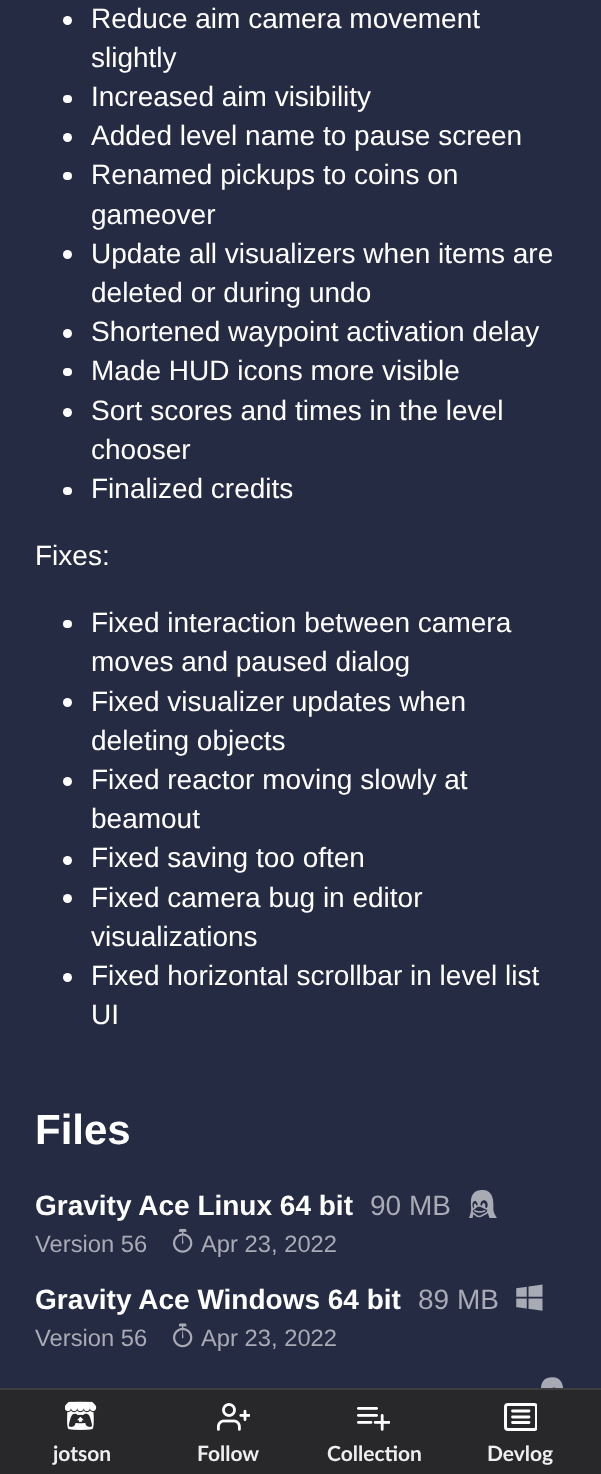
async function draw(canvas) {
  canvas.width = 601;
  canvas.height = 1474;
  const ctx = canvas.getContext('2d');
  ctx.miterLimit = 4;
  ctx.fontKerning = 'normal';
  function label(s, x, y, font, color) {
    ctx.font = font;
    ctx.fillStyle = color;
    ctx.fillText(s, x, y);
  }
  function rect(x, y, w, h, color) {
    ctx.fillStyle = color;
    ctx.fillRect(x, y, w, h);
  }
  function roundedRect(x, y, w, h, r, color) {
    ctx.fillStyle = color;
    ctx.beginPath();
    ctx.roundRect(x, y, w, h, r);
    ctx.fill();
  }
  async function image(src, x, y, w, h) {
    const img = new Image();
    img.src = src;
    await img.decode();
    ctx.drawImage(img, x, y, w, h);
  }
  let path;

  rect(0, 0, 601, 1474, '#262b44');
  ctx.fillStyle = '#fff';
  ctx.beginPath();
  ctx.arc(67.5, 20.5, 4.5, 0, 2 * Math.PI);
  ctx.fill();
  label('Reduce aim camera movement', 91, 28, '28px Liberation Sans', '#fff');
  label('slightly', 91, 67, '28px Liberation Sans', '#fff');
  roundedRect(63, 95, 9, 8, 4, '#fff');
  label('Increased aim visibility', 91, 106, '28px Liberation Sans', '#fff');
  ctx.beginPath();
  ctx.arc(67.5, 137.5, 4.5, 0, 2 * Math.PI);
  ctx.fill();
  label('Added level name to pause screen', 91, 145, '28px Liberation Sans', '#fff');
  roundedRect(63, 172, 9, 8, 4, '#fff');
  label('Renamed pickups to coins on', 91, 184, '28px Liberation Sans', '#fff');
  label('gameover', 91, 224, '28px Liberation Sans', '#fff');
  ctx.beginPath();
  ctx.arc(67.5, 254.5, 4.5, 0, 2 * Math.PI);
  ctx.fill();
  label('Update all visualizers when items are', 91, 263, '28px Liberation Sans', '#fff');
  label('deleted or during undo', 91, 302, '28px Liberation Sans', '#fff');
  ctx.beginPath();
  ctx.arc(67.5, 333.5, 4.5, 0, 2 * Math.PI);
  ctx.fill();
  label('Shortened waypoint activation delay', 91, 341, '28px Liberation Sans', '#fff');
  roundedRect(63, 368, 9, 8, 4, '#fff');
  label('Made HUD icons more visible', 91, 380, '28px Liberation Sans', '#fff');
  ctx.beginPath();
  ctx.arc(67.5, 412.5, 4.5, 0, 2 * Math.PI);
  ctx.fill();
  label('Sort scores and times in the level', 91, 420, '28px Liberation Sans', '#fff');
  label('chooser', 91, 459, '28px Liberation Sans', '#fff');
  roundedRect(63, 487, 9, 8, 4, '#fff');
  label('Finalized credits', 91, 498, '28px Liberation Sans', '#fff');
  label('Fixes:', 35, 565, '28px Liberation Sans', '#fff');
  roundedRect(63, 620, 9, 8, 4, '#fff');
  label('Fixed interaction between camera', 91, 632, '28px Liberation Sans', '#fff');
  label('moves and paused dialog', 91, 671, '28px Liberation Sans', '#fff');
  ctx.beginPath();
  ctx.arc(67.5, 702.5, 4.5, 0, 2 * Math.PI);
  ctx.fill();
  label('Fixed visualizer updates when', 91, 711, '28px Liberation Sans', '#fff');
  label('deleting objects', 91, 750, '28px Liberation Sans', '#fff');
  ctx.beginPath();
  ctx.arc(67.5, 781.5, 4.5, 0, 2 * Math.PI);
  ctx.fill();
  label('Fixed reactor moving slowly at', 91, 789, '28px Liberation Sans', '#fff');
  label('beamout', 91, 828, '28px Liberation Sans', '#fff');
  ctx.beginPath();
  ctx.arc(67.5, 860.5, 4.5, 0, 2 * Math.PI);
  ctx.fill();
  label('Fixed saving too often', 91, 867, '28px Liberation Sans', '#fff');
  ctx.beginPath();
  ctx.arc(67.5, 898.5, 4.5, 0, 2 * Math.PI);
  ctx.fill();
  label('Fixed camera bug in editor', 91, 907, '28px Liberation Sans', '#fff');
  label('visualizations', 91, 946, '28px Liberation Sans', '#fff');
  ctx.beginPath();
  ctx.arc(67.5, 977.5, 4.5, 0, 2 * Math.PI);
  ctx.fill();
  label('Fixed horizontal scrollbar in level list', 91, 985, '28px Liberation Sans', '#fff');
  label('UI', 91, 1024, '28px Liberation Sans', '#fff');
  label('Files', 35, 1144, 'bold 42px Liberation Sans', '#fff');
  label('Gravity Ace Linux 64 bit', 35, 1215, 'bold 28px Liberation Sans', '#fff');
  label('90 MB', 370, 1215, '28px Liberation Sans', '#a8aab4');
  await image('assets/img1.png', 469, 1190, 28, 28);
  label('Version 56', 35, 1252, '23.75px Liberation Sans', '#a8aab4');
  await image('assets/img2.png', 173, 1228, 20, 25);
  label('Apr 23, 2022', 201, 1252, '23.75px Liberation Sans', '#a8aab4');
  label('Gravity Ace Windows 64 bit', 35, 1309, 'bold 28px Liberation Sans', '#fff');
  label('89 MB', 418, 1309, '28px Liberation Sans', '#a8aab4');
  await image('assets/img3.png', 516, 1284, 27, 27);
  label('Version 56', 35, 1346, '23.75px Liberation Sans', '#a8aab4');
  await image('assets/img4.png', 173, 1323, 20, 25);
  label('Apr 23, 2022', 201, 1346, '23.75px Liberation Sans', '#a8aab4');
  await image('assets/img5.png', 541, 1377, 22, 11);
  rect(0, 1390, 601, 84, '#28282b');
  rect(0, 1388, 601, 2, '#3e3e40');
  await image('assets/img6.png', 65, 1401, 32, 29);
  label('jotson', 53, 1461, 'bold 21px Lato', '#eee');
  await image('assets/img7.png', 217, 1403, 33, 28);
  label('Follow', 197, 1461, 'bold 21px Lato', '#eee');
  await image('assets/img8.png', 357, 1407, 33, 24);
  label('Collection', 327, 1461, 'bold 21px Lato', '#eee');
  ctx.save();
  ctx.beginPath();
  ctx.rect(504, 1400, 33, 33);
  ctx.clip();
  ctx.beginPath();
  ctx.roundRect(505.5, 1404.5, 31, 25, 2.5);
  ctx.strokeStyle = '#fff';
  ctx.lineWidth = 3;
  ctx.stroke();
  ctx.restore();
  path = new Path2D('M512.5 1411H529M512.5 1417H529M512.5 1422.5H529');
  ctx.strokeStyle = '#fff';
  ctx.lineWidth = 2.8;
  ctx.lineCap = 'round';
  ctx.lineJoin = 'round';
  ctx.stroke(path);
  label('Devlog', 487, 1461, 'bold 21px Lato', '#eee');
}

draw(document.querySelector('canvas'));
